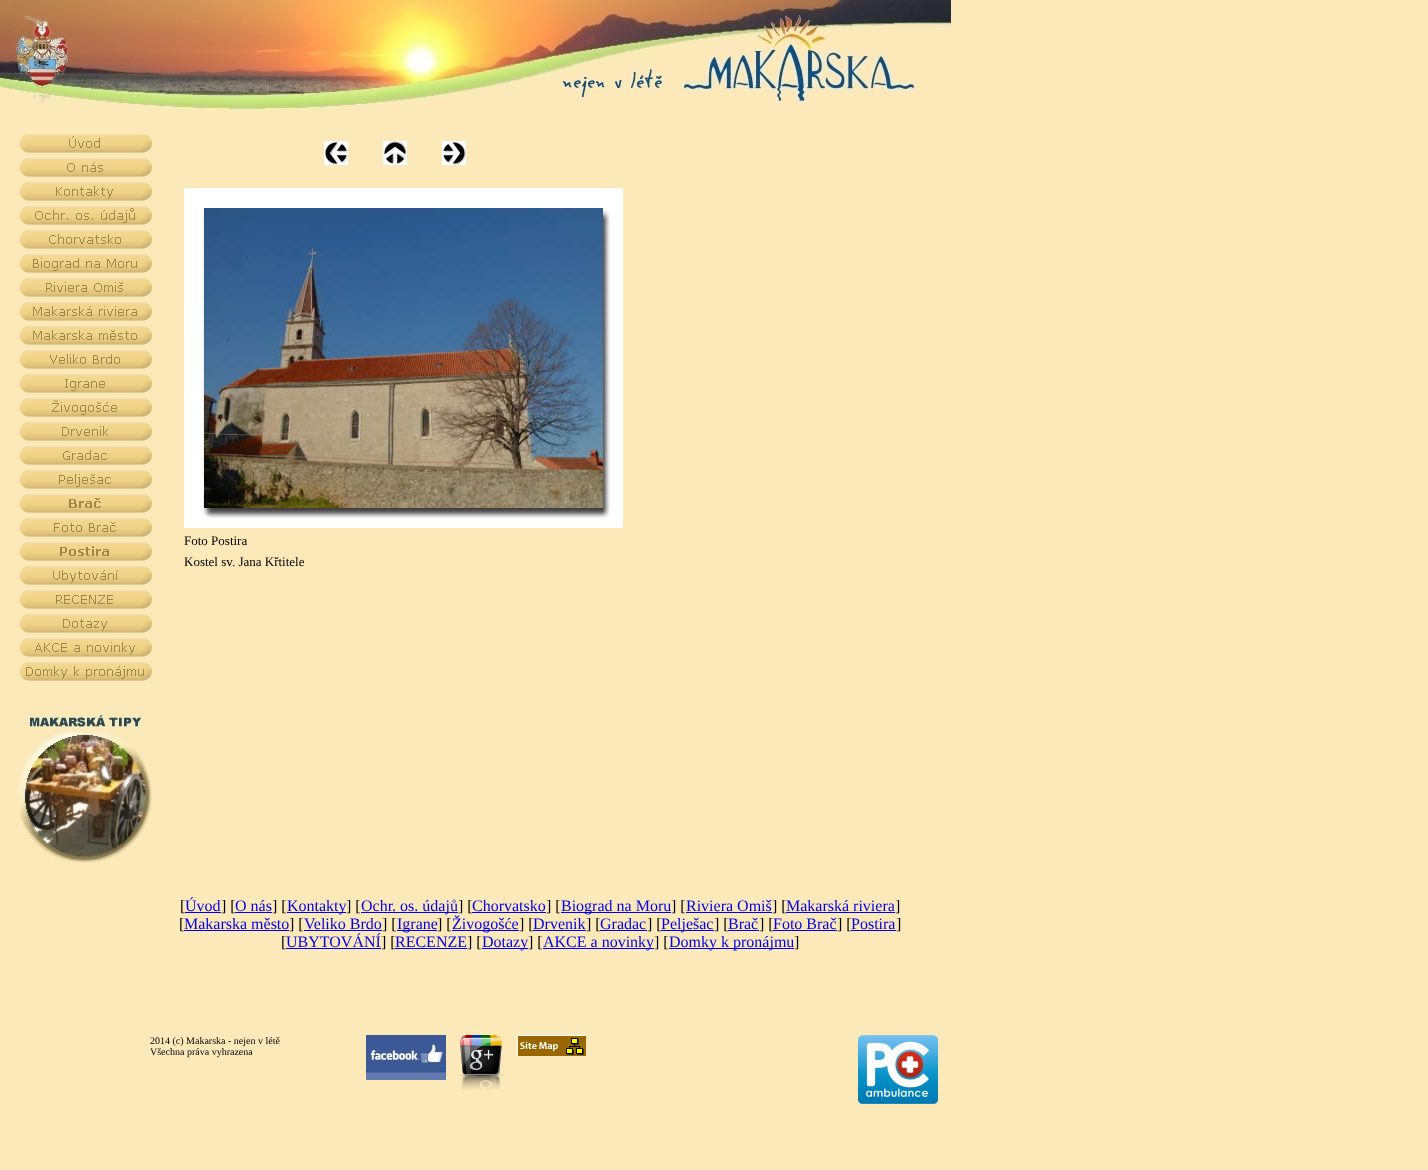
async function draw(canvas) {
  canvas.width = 1428;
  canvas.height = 1170;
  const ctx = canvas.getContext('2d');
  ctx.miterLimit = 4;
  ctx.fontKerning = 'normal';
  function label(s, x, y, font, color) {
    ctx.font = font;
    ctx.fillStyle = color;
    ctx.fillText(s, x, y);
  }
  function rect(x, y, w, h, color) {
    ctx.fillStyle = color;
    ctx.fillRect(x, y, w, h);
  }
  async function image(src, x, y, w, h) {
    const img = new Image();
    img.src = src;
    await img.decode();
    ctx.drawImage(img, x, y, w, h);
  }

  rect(0, 0, 1428, 1170, '#fbe9ba');
  await image('assets/img1.png', 0, 0, 951, 110);
  await image('assets/img2.png', 19, 134, 133, 19);
  await image('assets/img3.png', 19, 158, 133, 19);
  await image('assets/img4.png', 19, 182, 133, 19);
  await image('assets/img5.png', 19, 206, 133, 19);
  await image('assets/img6.png', 19, 230, 133, 19);
  await image('assets/img7.png', 19, 254, 133, 19);
  await image('assets/img8.png', 19, 278, 133, 19);
  await image('assets/img9.png', 19, 302, 133, 19);
  await image('assets/img10.png', 19, 326, 133, 19);
  await image('assets/img11.png', 19, 350, 133, 19);
  await image('assets/img12.png', 19, 374, 133, 19);
  await image('assets/img13.png', 19, 398, 133, 19);
  await image('assets/img14.png', 19, 422, 133, 19);
  await image('assets/img15.png', 19, 446, 133, 19);
  await image('assets/img16.png', 19, 470, 133, 19);
  await image('assets/img17.png', 19, 494, 133, 19);
  await image('assets/img18.png', 19, 518, 133, 19);
  await image('assets/img19.png', 19, 542, 133, 19);
  await image('assets/img20.png', 19, 566, 133, 19);
  await image('assets/img21.png', 19, 590, 133, 19);
  await image('assets/img22.png', 19, 614, 133, 19);
  await image('assets/img23.png', 19, 638, 133, 19);
  await image('assets/img24.png', 19, 662, 133, 19);
  await image('assets/img25.png', 18, 714, 134, 151);
  await image('assets/img26.png', 324, 141, 24, 24);
  await image('assets/img27.png', 383, 141, 24, 24);
  await image('assets/img28.png', 442, 141, 24, 24);
  rect(184, 188, 439, 20, '#fff');
  await image('assets/img29.png', 184, 208, 20, 300);
  await image('assets/img30.png', 204, 208, 399, 300);
  await image('assets/img31.png', 603, 208, 20, 300);
  await image('assets/img32.png', 603, 212, 5, 8);
  await image('assets/img33.png', 184, 508, 20, 20);
  await image('assets/img34.png', 204, 508, 399, 20);
  await image('assets/img35.png', 603, 508, 20, 20);
  label('Foto Postira', 184, 545, '13px Liberation Serif', '#000');
  label('Kostel sv. Jana Křtitele', 184, 566, '13px Liberation Serif', '#000');
  label('[', 180, 911, '16px Liberation Serif', '#000');
  label('Úvod', 185, 911, '16px Liberation Serif', '#00e');
  rect(185, 912, 36, 1, '#00e');
  label('] [', 221, 911, '16px Liberation Serif', '#000');
  label('O nás', 235, 911, '16px Liberation Serif', '#00e');
  rect(235, 912, 37, 1, '#00e');
  label('] [', 272, 911, '16px Liberation Serif', '#000');
  rect(287, 912, 59, 1, '#00e');
  label('Kontakty', 287, 911, '16px Liberation Serif', '#00e');
  label('] [', 346, 911, '16px Liberation Serif', '#000');
  rect(361, 912, 97, 1, '#00e');
  label('Ochr. os. údajů', 361, 911, '16px Liberation Serif', '#00e');
  label('] [', 458, 911, '16px Liberation Serif', '#000');
  label('Chorvatsko', 472, 911, '16px Liberation Serif', '#00e');
  rect(472, 912, 74, 1, '#00e');
  label('] [', 546, 911, '16px Liberation Serif', '#000');
  rect(561, 912, 110, 1, '#00e');
  label('Biograd na Moru', 561, 911, '16px Liberation Serif', '#00e');
  label('] [', 671, 911, '16px Liberation Serif', '#000');
  label('Riviera Omiš', 686, 911, '16px Liberation Serif', '#00e');
  rect(686, 912, 86, 1, '#00e');
  label('] [', 772, 911, '16px Liberation Serif', '#000');
  label('Makarská riviera', 786, 911, '16px Liberation Serif', '#00e');
  rect(786, 912, 109, 1, '#00e');
  label(']', 895, 911, '16px Liberation Serif', '#000');
  label('[', 179, 929, '16px Liberation Serif', '#000');
  label('Makarska město', 184, 929, '16px Liberation Serif', '#00e');
  rect(184, 930, 105, 1, '#00e');
  label('] [', 289, 929, '16px Liberation Serif', '#000');
  label('Veliko Brdo', 304, 929, '16px Liberation Serif', '#00e');
  rect(304, 930, 78, 1, '#00e');
  label('] [', 382, 929, '16px Liberation Serif', '#000');
  rect(397, 930, 40, 1, '#00e');
  label('Igrane', 397, 929, '16px Liberation Serif', '#00e');
  label('] [', 437, 929, '16px Liberation Serif', '#000');
  rect(452, 930, 67, 1, '#00e');
  label('Živogošće', 452, 929, '16px Liberation Serif', '#00e');
  label('] [', 519, 929, '16px Liberation Serif', '#000');
  label('Drvenik', 533, 929, '16px Liberation Serif', '#00e');
  rect(533, 930, 53, 1, '#00e');
  label('] [', 586, 929, '16px Liberation Serif', '#000');
  label('Gradac', 600, 929, '16px Liberation Serif', '#00e');
  rect(600, 930, 47, 1, '#00e');
  label('] [', 647, 929, '16px Liberation Serif', '#000');
  rect(661, 930, 53, 1, '#00e');
  label('Pelješac', 661, 929, '16px Liberation Serif', '#00e');
  label('] [', 714, 929, '16px Liberation Serif', '#000');
  label('Brač', 728, 929, '16px Liberation Serif', '#00e');
  rect(728, 930, 31, 1, '#00e');
  label('] [', 759, 929, '16px Liberation Serif', '#000');
  label('Foto Brač', 773, 929, '16px Liberation Serif', '#00e');
  rect(773, 930, 64, 1, '#00e');
  label('] [', 837, 929, '16px Liberation Serif', '#000');
  label('Postira', 851, 929, '16px Liberation Serif', '#00e');
  rect(851, 930, 45, 1, '#00e');
  label(']', 896, 929, '16px Liberation Serif', '#000');
  label('[', 281, 947, '16px Liberation Serif', '#000');
  label('UBYTOVÁNÍ', 286, 947, '16px Liberation Serif', '#00e');
  rect(286, 948, 95, 1, '#00e');
  label('] [', 381, 947, '16px Liberation Serif', '#000');
  label('RECENZE', 395, 947, '16px Liberation Serif', '#00e');
  rect(395, 948, 72, 1, '#00e');
  label('] [', 467, 947, '16px Liberation Serif', '#000');
  rect(482, 948, 46, 1, '#00e');
  label('Dotazy', 482, 947, '16px Liberation Serif', '#00e');
  label('] [', 528, 947, '16px Liberation Serif', '#000');
  rect(543, 948, 111, 1, '#00e');
  label('AKCE a novinky', 543, 947, '16px Liberation Serif', '#00e');
  label('] [', 654, 947, '16px Liberation Serif', '#000');
  rect(669, 948, 125, 1, '#00e');
  label('Domky k pronájmu', 669, 947, '16px Liberation Serif', '#00e');
  label(']', 794, 947, '16px Liberation Serif', '#000');
  label('2014 (c) Makarska - nejen v létě', 150, 1044, '10px Liberation Serif', '#000');
  label('Všechna práva vyhrazena', 150, 1055, '10px Liberation Serif', '#000');
  await image('assets/img36.png', 366, 1035, 80, 45);
  await image('assets/img37.png', 458, 1035, 46, 55);
  await image('assets/img38.png', 517, 1035, 69, 21);
  await image('assets/img39.png', 858, 1035, 80, 69);
}

draw(document.querySelector('canvas'));
